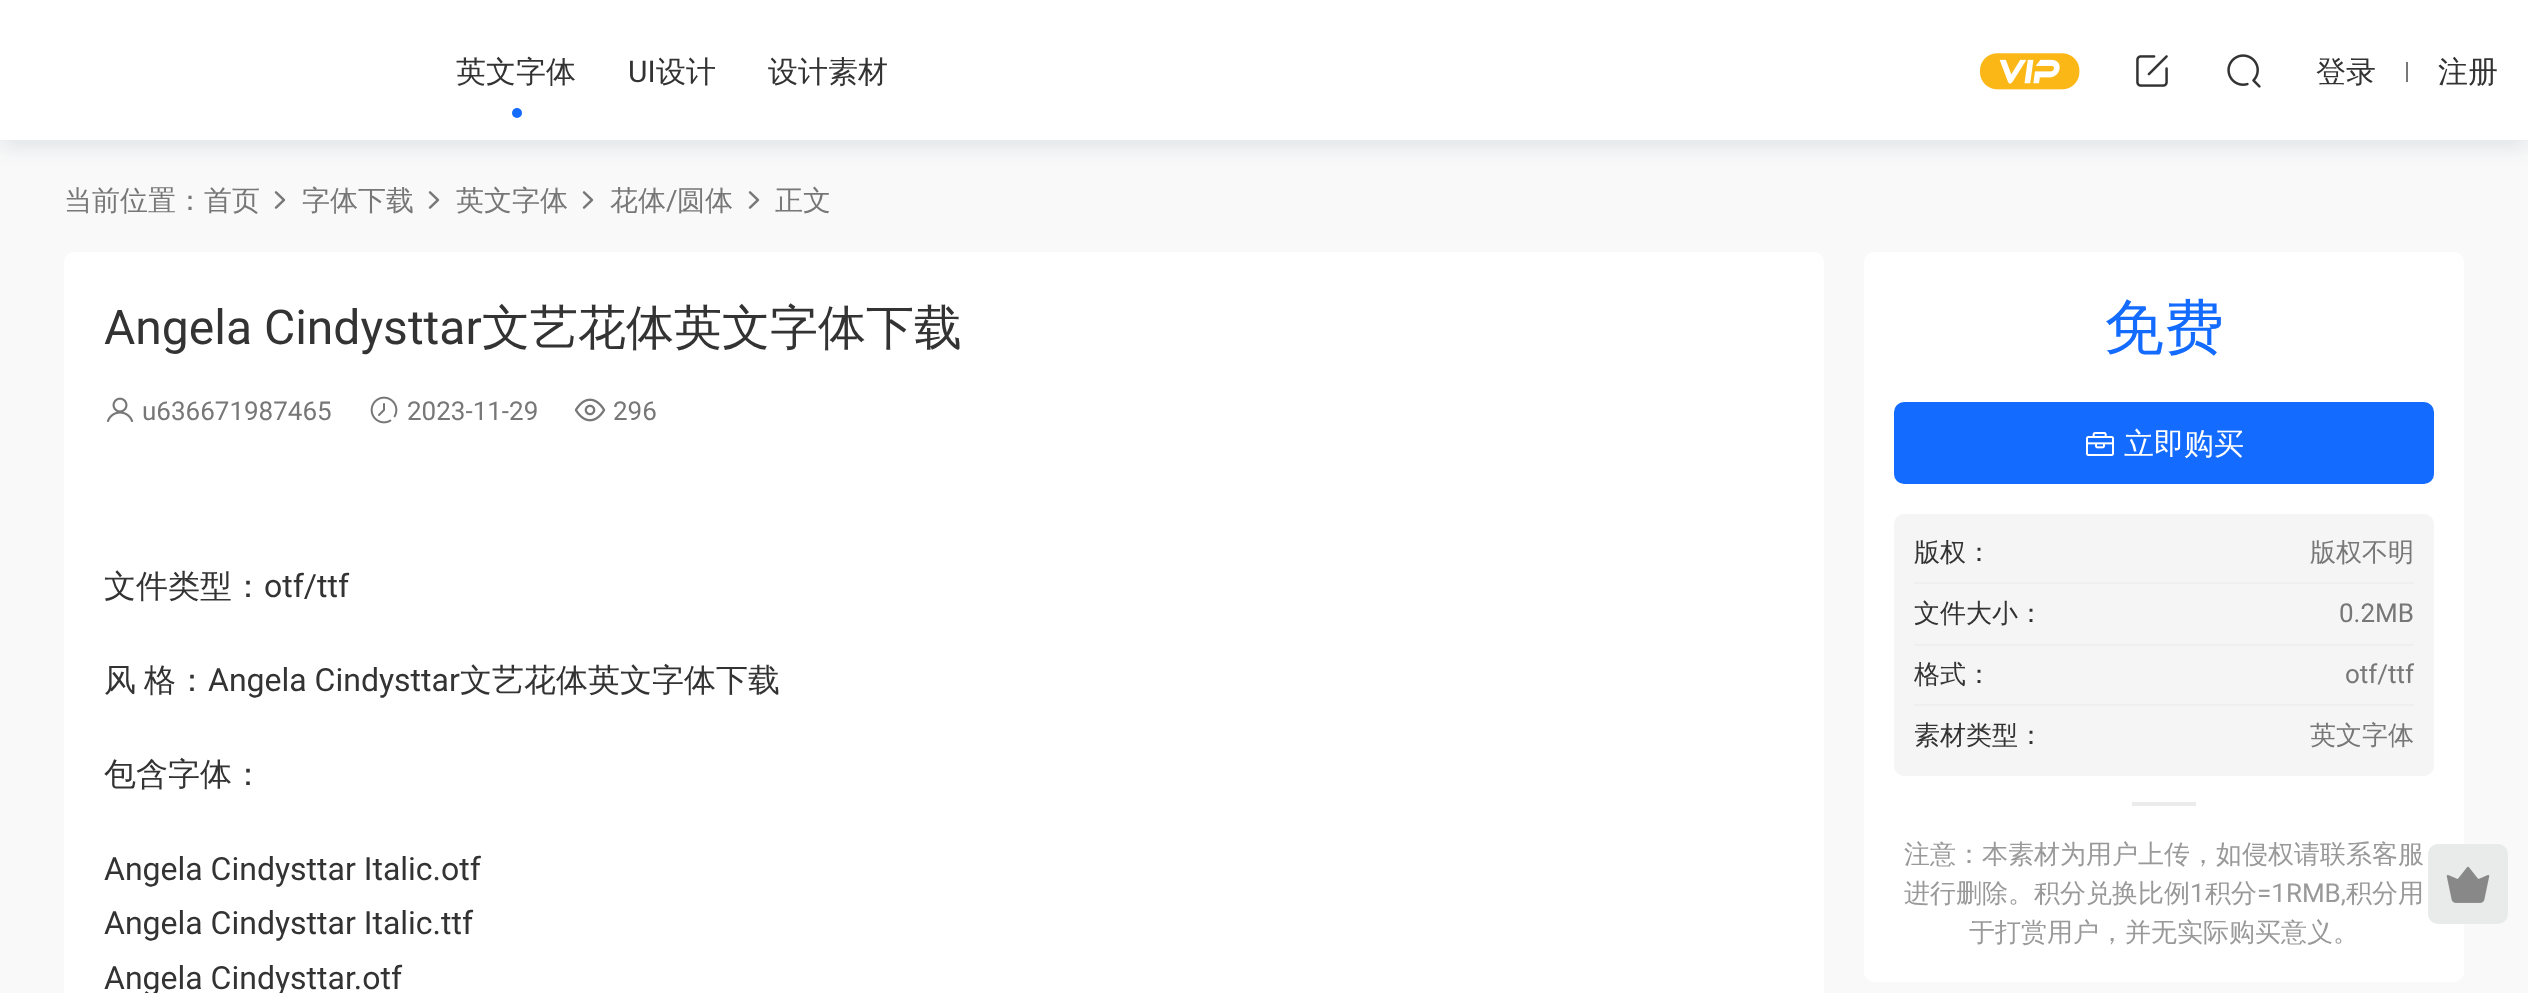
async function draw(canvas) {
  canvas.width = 2528;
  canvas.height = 993;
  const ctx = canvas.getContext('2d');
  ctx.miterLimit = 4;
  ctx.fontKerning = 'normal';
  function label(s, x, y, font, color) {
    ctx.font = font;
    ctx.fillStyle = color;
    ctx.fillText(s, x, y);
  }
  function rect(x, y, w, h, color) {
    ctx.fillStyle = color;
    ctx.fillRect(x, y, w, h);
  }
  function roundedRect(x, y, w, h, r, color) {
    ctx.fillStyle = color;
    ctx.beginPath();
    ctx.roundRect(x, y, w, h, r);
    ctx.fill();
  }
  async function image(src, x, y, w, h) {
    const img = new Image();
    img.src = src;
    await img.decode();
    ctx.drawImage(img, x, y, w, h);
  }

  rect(0, 0, 2528, 993, '#f9f9f9');
  ctx.fillStyle = '#113a5d1a';
  ctx.filter = 'blur(10px)';
  ctx.beginPath();
  ctx.rect(0, 8, 2528, 140);
  ctx.fill();
  ctx.filter = 'none';
  rect(0, 0, 2528, 140, '#fff');
  label('英文字体', 456, 82, '500 30px WenQuanYi Zen Hei', '#333');
  ctx.fillStyle = '#146bff';
  ctx.beginPath();
  ctx.arc(517, 113, 5, 0, 2 * Math.PI);
  ctx.fill();
  label('UI', 628, 82, '30px Roboto', '#333');
  label('设计', 656, 82, '500 30px WenQuanYi Zen Hei', '#333');
  label('设计素材', 768, 82, '500 30px WenQuanYi Zen Hei', '#333');
  await image('assets/img1.png', 1980, 53, 100, 37);
  await image('assets/img2.png', 2136, 55, 32, 32);
  await image('assets/img3.png', 2227, 54, 34, 34);
  label('登录', 2316, 82, '500 30px WenQuanYi Zen Hei', '#333');
  rect(2406, 62, 2, 20, '#777');
  label('注册', 2438, 82, '500 30px WenQuanYi Zen Hei', '#333');
  label('当前位置：首页', 64, 210, '500 28px WenQuanYi Zen Hei', '#777');
  await image('assets/img4.png', 274, 191, 12, 18);
  label('字体下载', 302, 210, '500 28px WenQuanYi Zen Hei', '#777');
  await image('assets/img4.png', 428, 191, 12, 18);
  label('英文字体', 456, 210, '500 28px WenQuanYi Zen Hei', '#777');
  await image('assets/img4.png', 582, 191, 12, 18);
  label('花体', 610, 210, '500 28px WenQuanYi Zen Hei', '#777');
  label('/', 666, 210, '28px Roboto', '#777');
  label('圆体', 677, 210, '500 28px WenQuanYi Zen Hei', '#777');
  await image('assets/img4.png', 748, 191, 12, 18);
  label('正文', 775, 210, '500 28px WenQuanYi Zen Hei', '#777');
  roundedRect(64, 252, 1760, 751, 10, '#fff');
  label('Angela Cindysttar', 104, 344, '48px Roboto', '#333');
  label('文艺花体英文字体下载', 482, 344, '500 48px WenQuanYi Zen Hei', '#333');
  await image('assets/img5.png', 106, 397, 28, 26);
  label('u636671987465', 142, 420, '26px Roboto', '#777');
  await image('assets/img6.png', 370, 396, 28, 28);
  label('2023-11-29', 407, 420, '26px Roboto', '#777');
  await image('assets/img7.png', 574, 398, 32, 24);
  label('296', 613, 420, '26px Roboto', '#777');
  label('文件类型：', 104, 597, '500 32px WenQuanYi Zen Hei', '#333');
  label('otf/ttf', 264, 597, '32px Roboto', '#333');
  label('风', 104, 691, '500 32px WenQuanYi Zen Hei', '#333');
  label('格：', 144, 691, '500 32px WenQuanYi Zen Hei', '#333');
  label('Angela Cindysttar', 208, 691, '32px Roboto', '#333');
  label('文艺花体英文字体下载', 460, 691, '500 32px WenQuanYi Zen Hei', '#333');
  label('包含字体：', 104, 785, '500 32px WenQuanYi Zen Hei', '#333');
  label('Angela Cindysttar Italic.otf', 104, 880, '32px Roboto', '#333');
  label('Angela Cindysttar Italic.ttf', 104, 934, '32px Roboto', '#333');
  label('Angela Cindysttar.otf', 104, 989, '32px Roboto', '#333');
  roundedRect(1864, 252, 600, 730, 10, '#fff');
  label('免费', 2104, 348, '500 60px WenQuanYi Zen Hei', '#146bff');
  roundedRect(1894, 402, 540, 82, 10, '#146bff');
  await image('assets/img8.png', 2086, 432, 28, 24);
  label('立即购买', 2124, 454, '500 30px WenQuanYi Zen Hei', '#fff');
  roundedRect(1894, 514, 540, 262, 10, '#f5f5f5');
  label('版权：', 1914, 561, '500 26px WenQuanYi Zen Hei', '#333');
  label('版权不明', 2310, 561, '500 26px WenQuanYi Zen Hei', '#777');
  rect(1914, 582, 500, 2, '#efefef');
  label('文件大小：', 1914, 622, '500 26px WenQuanYi Zen Hei', '#333');
  label('0.2MB', 2339, 622, '26px Roboto', '#777');
  rect(1914, 644, 500, 2, '#efefef');
  label('格式：', 1914, 683, '500 26px WenQuanYi Zen Hei', '#333');
  label('otf/ttf', 2345, 683, '26px Roboto', '#777');
  rect(1914, 704, 500, 2, '#efefef');
  label('素材类型：', 1914, 744, '500 26px WenQuanYi Zen Hei', '#333');
  label('英文字体', 2310, 744, '500 26px WenQuanYi Zen Hei', '#777');
  rect(2132, 802, 64, 4, '#ebebeb');
  label('注意：本素材为用户上传，如侵权请联系客服', 1904, 863, '500 26px WenQuanYi Zen Hei', '#999');
  label('进行删除。积分兑换比例', 1904, 902, '500 26px WenQuanYi Zen Hei', '#999');
  label('1', 2190, 902, '26px Roboto', '#999');
  label('积分', 2205, 902, '500 26px WenQuanYi Zen Hei', '#999');
  label('=1RMB,', 2257, 902, '26px Roboto', '#999');
  label('积分用', 2346, 902, '500 26px WenQuanYi Zen Hei', '#999');
  label('于打赏用户，并无实际购买意义。', 1969, 941, '500 26px WenQuanYi Zen Hei', '#999');
  roundedRect(2428, 844, 80, 80, 10, '#e9eaea');
  await image('assets/img9.png', 2446, 866, 44, 37);
}

draw(document.querySelector('canvas'));
